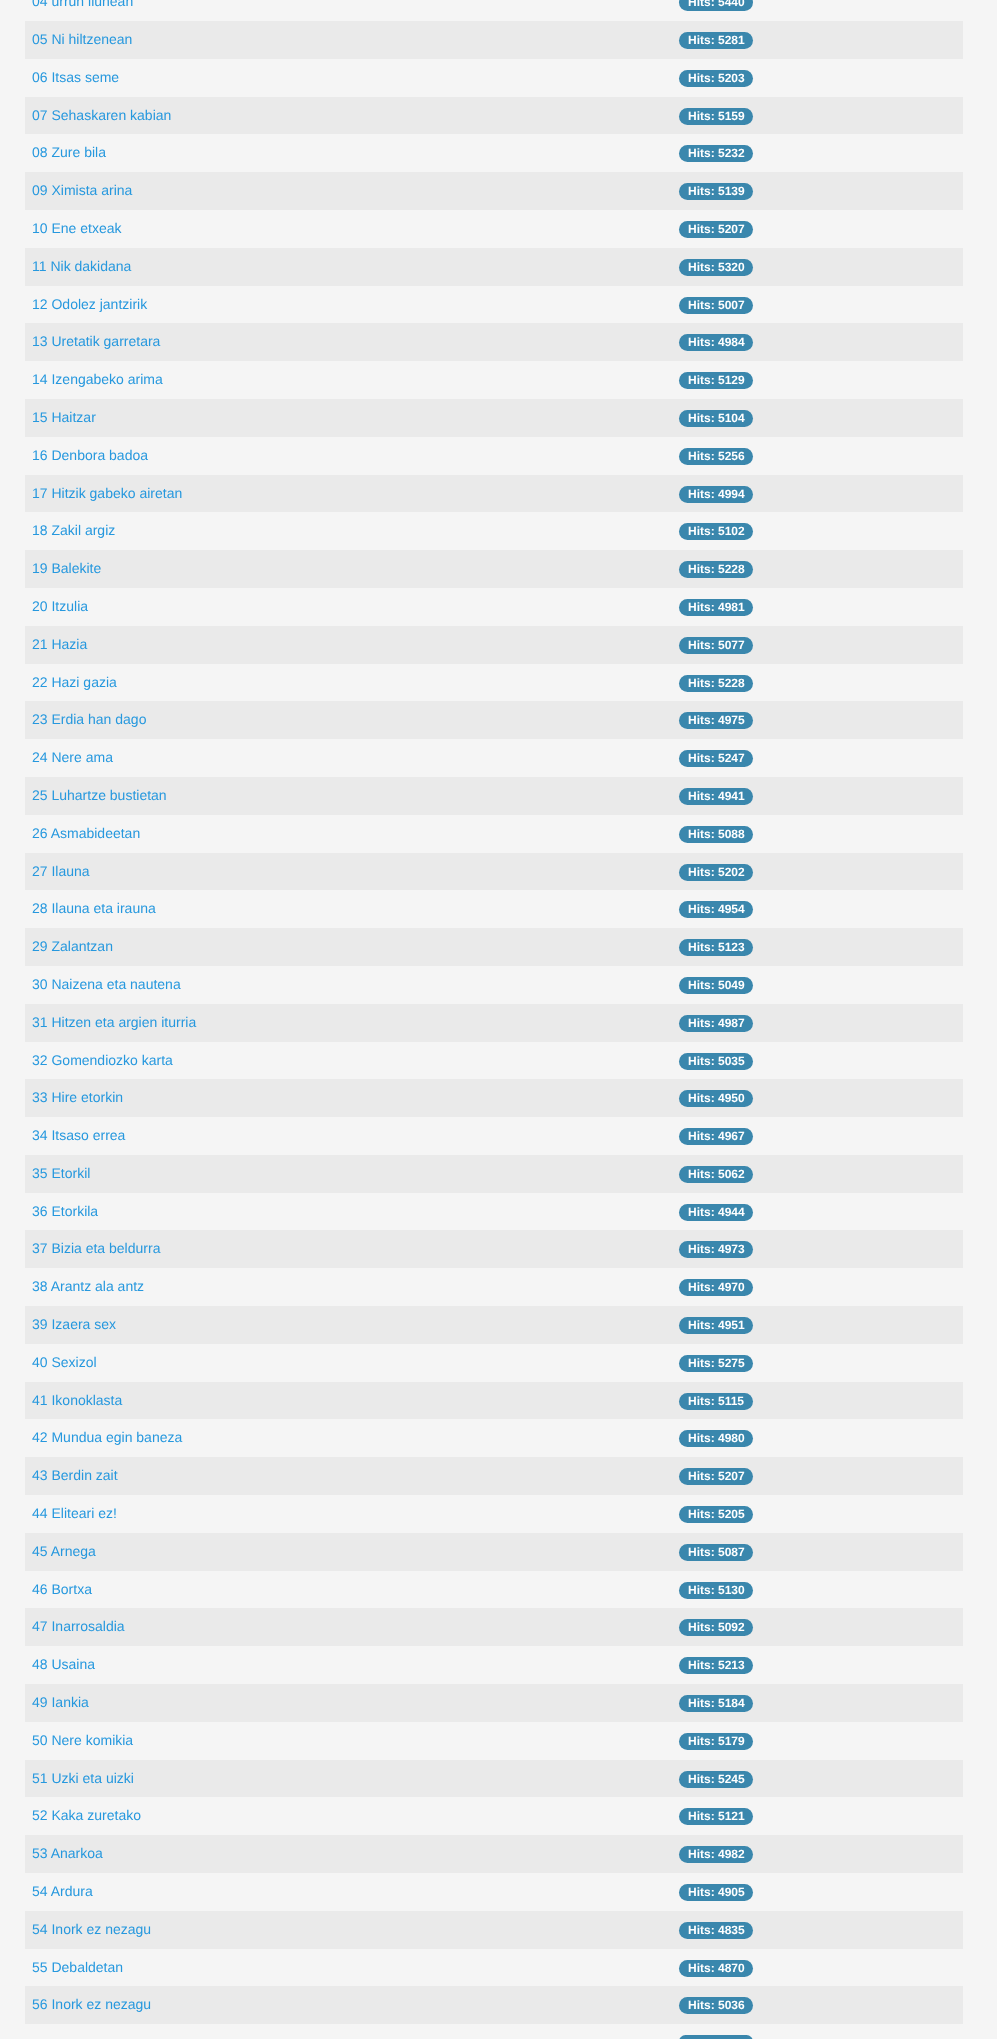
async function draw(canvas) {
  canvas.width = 997;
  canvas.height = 2039;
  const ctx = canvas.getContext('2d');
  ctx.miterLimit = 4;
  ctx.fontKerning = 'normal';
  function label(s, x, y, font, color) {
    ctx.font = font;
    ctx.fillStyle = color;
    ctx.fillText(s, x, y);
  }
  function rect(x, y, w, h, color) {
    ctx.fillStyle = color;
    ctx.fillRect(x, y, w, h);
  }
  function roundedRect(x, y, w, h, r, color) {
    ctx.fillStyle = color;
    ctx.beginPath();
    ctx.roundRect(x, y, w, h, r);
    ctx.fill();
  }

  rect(0, 0, 997, 2039, '#f5f5f5');
  label('04 urrun ilunean', 32, 6, '14px Liberation Sans', '#2698de');
  roundedRect(679, -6, 74, 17, 8.5, '#3a87ad');
  label('Hits: 5440', 688, 6, 'bold 12px Liberation Sans', '#fff');
  rect(25, 21, 938, 38, '#eaeaea');
  label('05 Ni hiltzenean', 32, 44, '14px Liberation Sans', '#2698de');
  roundedRect(679, 32, 74, 17, 8.5, '#3a87ad');
  label('Hits: 5281', 688, 44, 'bold 12px Liberation Sans', '#fff');
  label('06 Itsas seme', 32, 82, '14px Liberation Sans', '#2698de');
  roundedRect(679, 70, 74, 17, 8.5, '#3a87ad');
  label('Hits: 5203', 688, 82, 'bold 12px Liberation Sans', '#fff');
  rect(25, 97, 938, 37, '#eaeaea');
  label('07 Sehaskaren kabian', 32, 120, '14px Liberation Sans', '#2698de');
  roundedRect(679, 108, 74, 17, 8.5, '#3a87ad');
  label('Hits: 5159', 688, 120, 'bold 12px Liberation Sans', '#fff');
  label('08 Zure bila', 32, 157, '14px Liberation Sans', '#2698de');
  roundedRect(679, 145, 74, 17, 8.5, '#3a87ad');
  label('Hits: 5232', 688, 157, 'bold 12px Liberation Sans', '#fff');
  rect(25, 172, 938, 38, '#eaeaea');
  label('09 Ximista arina', 32, 195, '14px Liberation Sans', '#2698de');
  roundedRect(679, 183, 74, 17, 8.5, '#3a87ad');
  label('Hits: 5139', 688, 195, 'bold 12px Liberation Sans', '#fff');
  label('10 Ene etxeak', 32, 233, '14px Liberation Sans', '#2698de');
  roundedRect(679, 221, 74, 17, 8.5, '#3a87ad');
  label('Hits: 5207', 688, 233, 'bold 12px Liberation Sans', '#fff');
  rect(25, 248, 938, 38, '#eaeaea');
  label('11 Nik dakidana', 32, 271, '14px Liberation Sans', '#2698de');
  roundedRect(679, 259, 74, 17, 8.5, '#3a87ad');
  label('Hits: 5320', 688, 271, 'bold 12px Liberation Sans', '#fff');
  label('12 Odolez jantzirik', 32, 309, '14px Liberation Sans', '#2698de');
  roundedRect(679, 297, 74, 17, 8.5, '#3a87ad');
  label('Hits: 5007', 688, 309, 'bold 12px Liberation Sans', '#fff');
  rect(25, 323, 938, 38, '#eaeaea');
  label('13 Uretatik garretara', 32, 346, '14px Liberation Sans', '#2698de');
  roundedRect(679, 334, 74, 17, 8.5, '#3a87ad');
  label('Hits: 4984', 688, 346, 'bold 12px Liberation Sans', '#fff');
  label('14 Izengabeko arima', 32, 384, '14px Liberation Sans', '#2698de');
  roundedRect(679, 372, 74, 17, 8.5, '#3a87ad');
  label('Hits: 5129', 688, 384, 'bold 12px Liberation Sans', '#fff');
  rect(25, 399, 938, 38, '#eaeaea');
  label('15 Haitzar', 32, 422, '14px Liberation Sans', '#2698de');
  roundedRect(679, 410, 74, 17, 8.5, '#3a87ad');
  label('Hits: 5104', 688, 422, 'bold 12px Liberation Sans', '#fff');
  label('16 Denbora badoa', 32, 460, '14px Liberation Sans', '#2698de');
  roundedRect(679, 448, 74, 17, 8.5, '#3a87ad');
  label('Hits: 5256', 688, 460, 'bold 12px Liberation Sans', '#fff');
  rect(25, 475, 938, 37, '#eaeaea');
  label('17 Hitzik gabeko airetan', 32, 498, '14px Liberation Sans', '#2698de');
  roundedRect(679, 486, 74, 17, 8.5, '#3a87ad');
  label('Hits: 4994', 688, 498, 'bold 12px Liberation Sans', '#fff');
  label('18 Zakil argiz', 32, 535, '14px Liberation Sans', '#2698de');
  roundedRect(679, 523, 74, 17, 8.5, '#3a87ad');
  label('Hits: 5102', 688, 535, 'bold 12px Liberation Sans', '#fff');
  rect(25, 550, 938, 38, '#eaeaea');
  label('19 Balekite', 32, 573, '14px Liberation Sans', '#2698de');
  roundedRect(679, 561, 74, 17, 8.5, '#3a87ad');
  label('Hits: 5228', 688, 573, 'bold 12px Liberation Sans', '#fff');
  label('20 Itzulia', 32, 611, '14px Liberation Sans', '#2698de');
  roundedRect(679, 599, 74, 17, 8.5, '#3a87ad');
  label('Hits: 4981', 688, 611, 'bold 12px Liberation Sans', '#fff');
  rect(25, 626, 938, 38, '#eaeaea');
  label('21 Hazia', 32, 649, '14px Liberation Sans', '#2698de');
  roundedRect(679, 637, 74, 17, 8.5, '#3a87ad');
  label('Hits: 5077', 688, 649, 'bold 12px Liberation Sans', '#fff');
  label('22 Hazi gazia', 32, 687, '14px Liberation Sans', '#2698de');
  roundedRect(679, 675, 74, 17, 8.5, '#3a87ad');
  label('Hits: 5228', 688, 687, 'bold 12px Liberation Sans', '#fff');
  rect(25, 701, 938, 38, '#eaeaea');
  label('23 Erdia han dago', 32, 724, '14px Liberation Sans', '#2698de');
  roundedRect(679, 712, 74, 17, 8.5, '#3a87ad');
  label('Hits: 4975', 688, 724, 'bold 12px Liberation Sans', '#fff');
  label('24 Nere ama', 32, 762, '14px Liberation Sans', '#2698de');
  roundedRect(679, 750, 74, 17, 8.5, '#3a87ad');
  label('Hits: 5247', 688, 762, 'bold 12px Liberation Sans', '#fff');
  rect(25, 777, 938, 38, '#eaeaea');
  label('25 Luhartze bustietan', 32, 800, '14px Liberation Sans', '#2698de');
  roundedRect(679, 788, 74, 17, 8.5, '#3a87ad');
  label('Hits: 4941', 688, 800, 'bold 12px Liberation Sans', '#fff');
  label('26 Asmabideetan', 32, 838, '14px Liberation Sans', '#2698de');
  roundedRect(679, 826, 74, 17, 8.5, '#3a87ad');
  label('Hits: 5088', 688, 838, 'bold 12px Liberation Sans', '#fff');
  rect(25, 853, 938, 37, '#eaeaea');
  label('27 Ilauna', 32, 876, '14px Liberation Sans', '#2698de');
  roundedRect(679, 864, 74, 17, 8.5, '#3a87ad');
  label('Hits: 5202', 688, 876, 'bold 12px Liberation Sans', '#fff');
  label('28 Ilauna eta irauna', 32, 913, '14px Liberation Sans', '#2698de');
  roundedRect(679, 901, 74, 17, 8.5, '#3a87ad');
  label('Hits: 4954', 688, 913, 'bold 12px Liberation Sans', '#fff');
  rect(25, 928, 938, 38, '#eaeaea');
  label('29 Zalantzan', 32, 951, '14px Liberation Sans', '#2698de');
  roundedRect(679, 939, 74, 17, 8.5, '#3a87ad');
  label('Hits: 5123', 688, 951, 'bold 12px Liberation Sans', '#fff');
  label('30 Naizena eta nautena', 32, 989, '14px Liberation Sans', '#2698de');
  roundedRect(679, 977, 74, 17, 8.5, '#3a87ad');
  label('Hits: 5049', 688, 989, 'bold 12px Liberation Sans', '#fff');
  rect(25, 1004, 938, 38, '#eaeaea');
  label('31 Hitzen eta argien iturria', 32, 1027, '14px Liberation Sans', '#2698de');
  roundedRect(679, 1015, 74, 17, 8.5, '#3a87ad');
  label('Hits: 4987', 688, 1027, 'bold 12px Liberation Sans', '#fff');
  label('32 Gomendiozko karta', 32, 1065, '14px Liberation Sans', '#2698de');
  roundedRect(679, 1053, 74, 17, 8.5, '#3a87ad');
  label('Hits: 5035', 688, 1065, 'bold 12px Liberation Sans', '#fff');
  rect(25, 1079, 938, 38, '#eaeaea');
  label('33 Hire etorkin', 32, 1102, '14px Liberation Sans', '#2698de');
  roundedRect(679, 1090, 74, 17, 8.5, '#3a87ad');
  label('Hits: 4950', 688, 1102, 'bold 12px Liberation Sans', '#fff');
  label('34 Itsaso errea', 32, 1140, '14px Liberation Sans', '#2698de');
  roundedRect(679, 1128, 74, 17, 8.5, '#3a87ad');
  label('Hits: 4967', 688, 1140, 'bold 12px Liberation Sans', '#fff');
  rect(25, 1155, 938, 38, '#eaeaea');
  label('35 Etorkil', 32, 1178, '14px Liberation Sans', '#2698de');
  roundedRect(679, 1166, 74, 17, 8.5, '#3a87ad');
  label('Hits: 5062', 688, 1178, 'bold 12px Liberation Sans', '#fff');
  label('36 Etorkila', 32, 1216, '14px Liberation Sans', '#2698de');
  roundedRect(679, 1204, 74, 17, 8.5, '#3a87ad');
  label('Hits: 4944', 688, 1216, 'bold 12px Liberation Sans', '#fff');
  rect(25, 1230, 938, 38, '#eaeaea');
  label('37 Bizia eta beldurra', 32, 1253, '14px Liberation Sans', '#2698de');
  roundedRect(679, 1241, 74, 17, 8.5, '#3a87ad');
  label('Hits: 4973', 688, 1253, 'bold 12px Liberation Sans', '#fff');
  label('38 Arantz ala antz', 32, 1291, '14px Liberation Sans', '#2698de');
  roundedRect(679, 1279, 74, 17, 8.5, '#3a87ad');
  label('Hits: 4970', 688, 1291, 'bold 12px Liberation Sans', '#fff');
  rect(25, 1306, 938, 38, '#eaeaea');
  label('39 Izaera sex', 32, 1329, '14px Liberation Sans', '#2698de');
  roundedRect(679, 1317, 74, 17, 8.5, '#3a87ad');
  label('Hits: 4951', 688, 1329, 'bold 12px Liberation Sans', '#fff');
  label('40 Sexizol', 32, 1367, '14px Liberation Sans', '#2698de');
  roundedRect(679, 1355, 74, 17, 8.5, '#3a87ad');
  label('Hits: 5275', 688, 1367, 'bold 12px Liberation Sans', '#fff');
  rect(25, 1382, 938, 37, '#eaeaea');
  label('41 Ikonoklasta', 32, 1405, '14px Liberation Sans', '#2698de');
  roundedRect(679, 1393, 74, 17, 8.5, '#3a87ad');
  label('Hits: 5115', 688, 1405, 'bold 12px Liberation Sans', '#fff');
  label('42 Mundua egin baneza', 32, 1442, '14px Liberation Sans', '#2698de');
  roundedRect(679, 1430, 74, 17, 8.5, '#3a87ad');
  label('Hits: 4980', 688, 1442, 'bold 12px Liberation Sans', '#fff');
  rect(25, 1457, 938, 38, '#eaeaea');
  label('43 Berdin zait', 32, 1480, '14px Liberation Sans', '#2698de');
  roundedRect(679, 1468, 74, 17, 8.5, '#3a87ad');
  label('Hits: 5207', 688, 1480, 'bold 12px Liberation Sans', '#fff');
  label('44 Eliteari ez!', 32, 1518, '14px Liberation Sans', '#2698de');
  roundedRect(679, 1506, 74, 17, 8.5, '#3a87ad');
  label('Hits: 5205', 688, 1518, 'bold 12px Liberation Sans', '#fff');
  rect(25, 1533, 938, 38, '#eaeaea');
  label('45 Arnega', 32, 1556, '14px Liberation Sans', '#2698de');
  roundedRect(679, 1544, 74, 17, 8.5, '#3a87ad');
  label('Hits: 5087', 688, 1556, 'bold 12px Liberation Sans', '#fff');
  label('46 Bortxa', 32, 1594, '14px Liberation Sans', '#2698de');
  roundedRect(679, 1582, 74, 17, 8.5, '#3a87ad');
  label('Hits: 5130', 688, 1594, 'bold 12px Liberation Sans', '#fff');
  rect(25, 1608, 938, 38, '#eaeaea');
  label('47 Inarrosaldia', 32, 1631, '14px Liberation Sans', '#2698de');
  roundedRect(679, 1619, 74, 17, 8.5, '#3a87ad');
  label('Hits: 5092', 688, 1631, 'bold 12px Liberation Sans', '#fff');
  label('48 Usaina', 32, 1669, '14px Liberation Sans', '#2698de');
  roundedRect(679, 1657, 74, 17, 8.5, '#3a87ad');
  label('Hits: 5213', 688, 1669, 'bold 12px Liberation Sans', '#fff');
  rect(25, 1684, 938, 38, '#eaeaea');
  label('49 Iankia', 32, 1707, '14px Liberation Sans', '#2698de');
  roundedRect(679, 1695, 74, 17, 8.5, '#3a87ad');
  label('Hits: 5184', 688, 1707, 'bold 12px Liberation Sans', '#fff');
  label('50 Nere komikia', 32, 1745, '14px Liberation Sans', '#2698de');
  roundedRect(679, 1733, 74, 17, 8.5, '#3a87ad');
  label('Hits: 5179', 688, 1745, 'bold 12px Liberation Sans', '#fff');
  rect(25, 1760, 938, 37, '#eaeaea');
  label('51 Uzki eta uizki', 32, 1783, '14px Liberation Sans', '#2698de');
  roundedRect(679, 1771, 74, 17, 8.5, '#3a87ad');
  label('Hits: 5245', 688, 1783, 'bold 12px Liberation Sans', '#fff');
  label('52 Kaka zuretako', 32, 1820, '14px Liberation Sans', '#2698de');
  roundedRect(679, 1808, 74, 17, 8.5, '#3a87ad');
  label('Hits: 5121', 688, 1820, 'bold 12px Liberation Sans', '#fff');
  rect(25, 1835, 938, 38, '#eaeaea');
  label('53 Anarkoa', 32, 1858, '14px Liberation Sans', '#2698de');
  roundedRect(679, 1846, 74, 17, 8.5, '#3a87ad');
  label('Hits: 4982', 688, 1858, 'bold 12px Liberation Sans', '#fff');
  label('54 Ardura', 32, 1896, '14px Liberation Sans', '#2698de');
  roundedRect(679, 1884, 74, 17, 8.5, '#3a87ad');
  label('Hits: 4905', 688, 1896, 'bold 12px Liberation Sans', '#fff');
  rect(25, 1911, 938, 38, '#eaeaea');
  label('54 Inork ez nezagu', 32, 1934, '14px Liberation Sans', '#2698de');
  roundedRect(679, 1922, 74, 17, 8.5, '#3a87ad');
  label('Hits: 4835', 688, 1934, 'bold 12px Liberation Sans', '#fff');
  label('55 Debaldetan', 32, 1972, '14px Liberation Sans', '#2698de');
  roundedRect(679, 1960, 74, 17, 8.5, '#3a87ad');
  label('Hits: 4870', 688, 1972, 'bold 12px Liberation Sans', '#fff');
  rect(25, 1986, 938, 38, '#eaeaea');
  label('56 Inork ez nezagu', 32, 2009, '14px Liberation Sans', '#2698de');
  roundedRect(679, 1997, 74, 17, 8.5, '#3a87ad');
  label('Hits: 5036', 688, 2009, 'bold 12px Liberation Sans', '#fff');
  roundedRect(679, 2035, 74, 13, 8.5, '#3a87ad');
}

draw(document.querySelector('canvas'));
